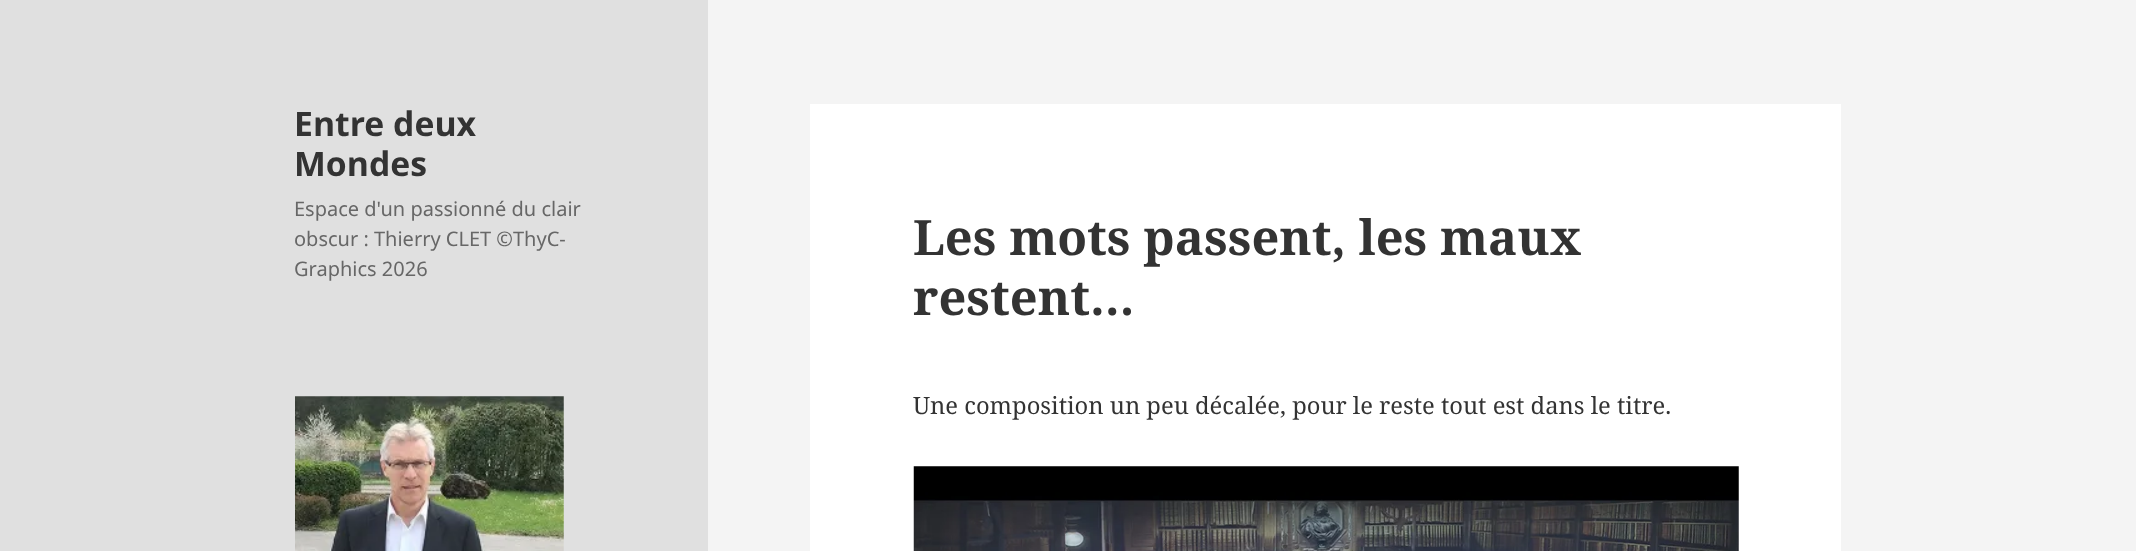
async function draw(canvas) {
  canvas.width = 2136;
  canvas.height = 551;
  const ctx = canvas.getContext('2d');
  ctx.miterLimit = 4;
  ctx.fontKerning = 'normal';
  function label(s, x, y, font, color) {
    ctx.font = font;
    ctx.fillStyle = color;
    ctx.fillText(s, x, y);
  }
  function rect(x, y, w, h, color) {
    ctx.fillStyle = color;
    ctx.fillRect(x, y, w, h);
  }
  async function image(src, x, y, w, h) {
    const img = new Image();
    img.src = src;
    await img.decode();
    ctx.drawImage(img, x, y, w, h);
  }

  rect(0, 0, 2136, 551, '#f4f4f4');
  rect(0, 0, 708, 551, '#e0e0e0');
  label('Entre deux', 294, 136, 'bold 33.75px Noto Sans', '#333');
  label('Mondes', 294, 176, 'bold 33.75px Noto Sans', '#333');
  label('Espace d\'un passionné du clair', 294, 216, '20px Noto Sans', '#676767');
  label('obscur : Thierry CLET ©ThyC-', 294, 246, '20px Noto Sans', '#676767');
  label('Graphics 2026', 294, 276, '20px Noto Sans', '#676767');
  await image('assets/img1.png', 295, 396, 269, 155);
  rect(810, 104, 1031, 447, '#fff');
  label('Les mots passent, les maux', 913, 255, 'bold 48.75px Noto Serif', '#333');
  label('restent…', 913, 315, 'bold 48.75px Noto Serif', '#333');
  label('Une composition un peu décalée, pour le reste tout est dans le titre.', 913, 414, '23.75px Noto Serif', '#333');
  await image('assets/img2.png', 913, 466, 826, 85);
}

draw(document.querySelector('canvas'));
